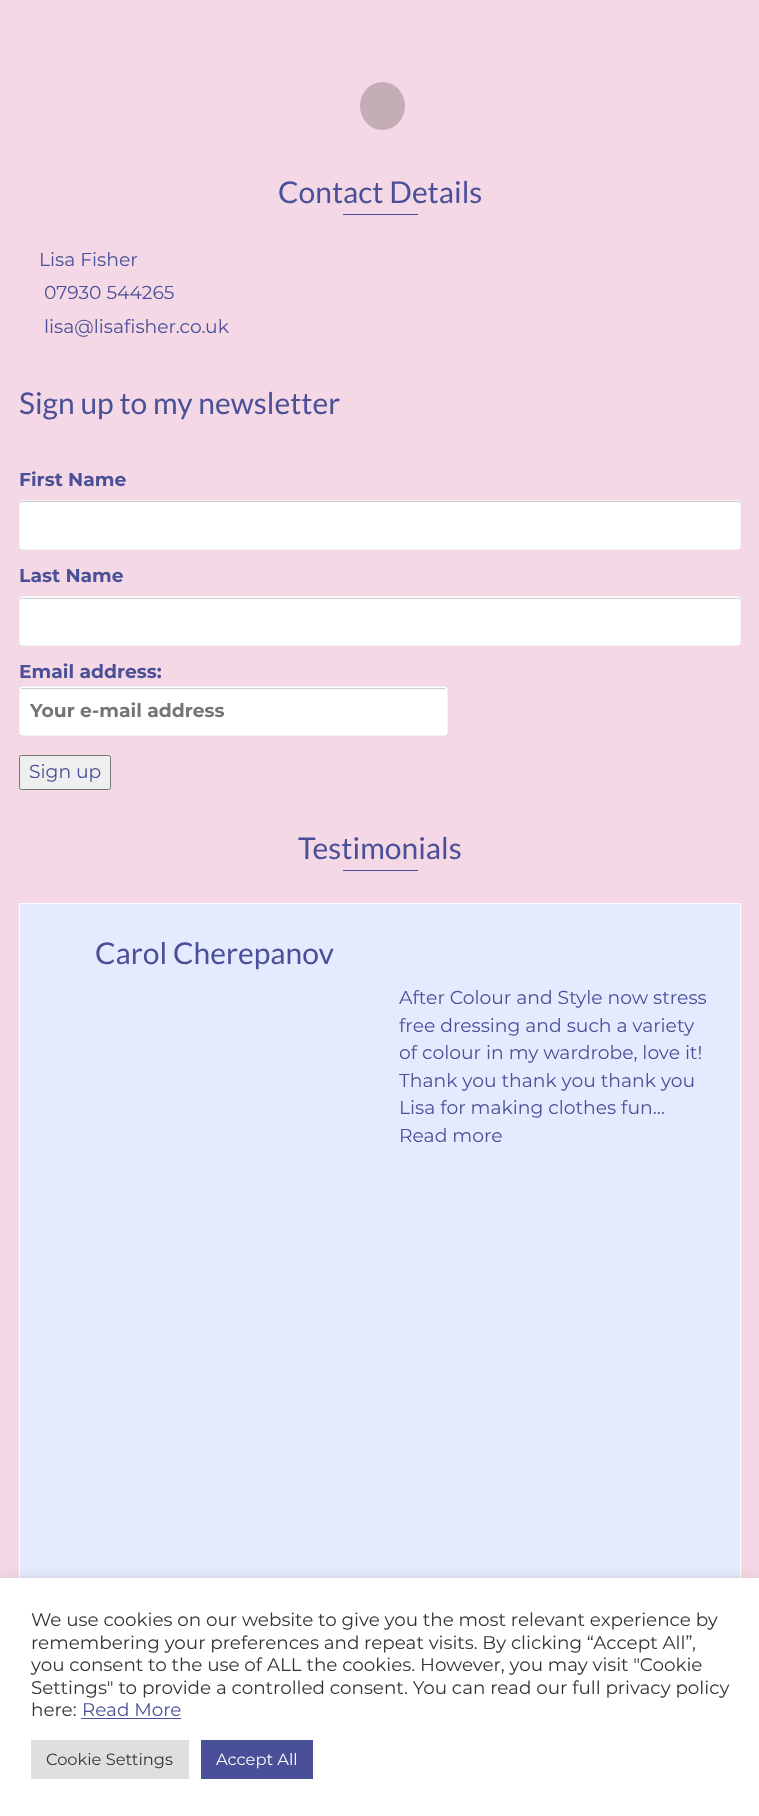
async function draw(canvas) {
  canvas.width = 759;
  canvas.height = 1816;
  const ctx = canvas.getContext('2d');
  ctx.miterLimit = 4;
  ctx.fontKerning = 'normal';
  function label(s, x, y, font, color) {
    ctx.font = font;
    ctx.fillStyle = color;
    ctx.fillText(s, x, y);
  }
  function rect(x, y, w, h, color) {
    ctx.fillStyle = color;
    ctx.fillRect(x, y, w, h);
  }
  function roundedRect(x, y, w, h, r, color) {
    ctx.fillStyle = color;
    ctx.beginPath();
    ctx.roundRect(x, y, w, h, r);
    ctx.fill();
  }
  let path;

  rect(0, 0, 759, 1816, '#f5d8e5');
  ctx.fillStyle = '#c4adb7';
  ctx.beginPath();
  ctx.ellipse(382.5, 106, 22.5, 24, 0, 0, 2 * Math.PI);
  ctx.fill();
  label('Contact Details', 278, 203, '30px Lato', '#4a5098');
  rect(343, 214, 75, 1, '#4a5098');
  label('Lisa Fisher', 39, 266, '18.75px Montserrat', '#4a5098');
  label('07930 544265', 44, 299, '18.75px Montserrat', '#4a5098');
  label('lisa@lisafisher.co.uk', 44, 333, '18.75px Montserrat', '#4a5098');
  label('Sign up to my newsletter', 19, 414, '30px Lato', '#4a5098');
  label('First Name', 19, 486, 'bold 18.75px Montserrat', '#4a5098');
  roundedRect(19, 500, 722, 50, 4, '#fff');
  ctx.fillStyle = '#ccc';
  path = new Path2D('M22 502H738C739 502 740 504 740 505V504C740 502 739 501 738 501H22C21 501 20 502 20 504V505C20 504 21 502 22 502Z');
  ctx.fill(path);
  ctx.strokeStyle = '#0000000d';
  ctx.strokeRect(19.5, 500.5, 721, 49);
  label('Last Name', 19, 582, 'bold 18.75px Montserrat', '#4a5098');
  roundedRect(19, 596, 722, 50, 4, '#fff');
  ctx.fillStyle = '#ccc';
  path = new Path2D('M22 599H738C739 599 740 600 740 601C740 599 739 598 738 598H22C21 598 20 599 20 601C20 600 21 599 22 599Z');
  ctx.fill(path);
  ctx.strokeRect(19.5, 596.5, 721, 49);
  label('Email address:', 19, 678, 'bold 18.75px Montserrat', '#4a5098');
  roundedRect(19, 686, 429, 50, 4, '#fff');
  ctx.fillStyle = '#ccc';
  path = new Path2D('M22 689H444C445 689 446 690 446 691C446 689 445 688 444 688H22L21 689L20 691C20 690 21 689 22 689Z');
  ctx.fill(path);
  ctx.strokeRect(19.5, 686.5, 428, 49);
  label('Your e-mail address', 30, 717, 'bold 18.75px Montserrat', '#757575');
  ctx.fillStyle = '#efefef';
  ctx.beginPath();
  ctx.roundRect(19.5, 755.5, 91, 34, 2);
  ctx.fill();
  ctx.strokeStyle = '#767676';
  ctx.stroke();
  label('Sign up', 29, 778, '18.75px Montserrat', '#4a5098');
  label('Testimonials', 298, 859, '30px Lato', '#4a5098');
  rect(343, 870, 75, 1, '#4a5098');
  rect(20, 904, 720, 674, '#e5ebff');
  ctx.strokeStyle = '#fff';
  ctx.strokeRect(19.5, 903.5, 721, 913);
  label('Carol Cherepanov', 95, 964, '30px Lato', '#4a5098');
  label('After Colour and Style now stress', 399, 1004, '18.75px Montserrat', '#4a5098');
  label('free dressing and such a variety', 399, 1032, '18.75px Montserrat', '#4a5098');
  label('of colour in my wardrobe, love it!', 399, 1059, '18.75px Montserrat', '#4a5098');
  label('Thank you thank you thank you', 399, 1087, '18.75px Montserrat', '#4a5098');
  label('Lisa for making clothes fun…', 399, 1114, '18.75px Montserrat', '#4a5098');
  label('Read more', 399, 1142, '18.75px Montserrat', '#4a5098');
  ctx.fillStyle = '#acabab4d';
  ctx.filter = 'blur(6px)';
  ctx.beginPath();
  ctx.rect(0, 1576, 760, 239);
  ctx.fill();
  ctx.filter = 'none';
  rect(0, 1578, 759, 238, '#fff');
  label('We use cookies on our website to give you the most relevant experience by', 31, 1626, '18.35px Montserrat', '#333');
  label('remembering your preferences and repeat visits. By clicking “Accept All”,', 31, 1649, '18.35px Montserrat', '#333');
  label('you consent to the use of ALL the cookies. However, you may visit "Cookie', 31, 1671, '18.35px Montserrat', '#333');
  label('Settings" to provide a controlled consent. You can read our full privacy policy', 31, 1694, '18.35px Montserrat', '#333');
  label('here:', 31, 1716, '18.35px Montserrat', '#333');
  label('Read More', 82, 1716, '18.35px Montserrat', '#4a5098');
  rect(81, 1718, 100, 1, '#4a5098');
  rect(31, 1740, 158, 39, '#dedfe0');
  label('Cookie Settings', 46, 1765, '16.25px Montserrat', '#333');
  rect(201, 1740, 112, 39, '#4a5098');
  label('Accept All', 216, 1765, '16.25px Montserrat', '#fff');
}

draw(document.querySelector('canvas'));
